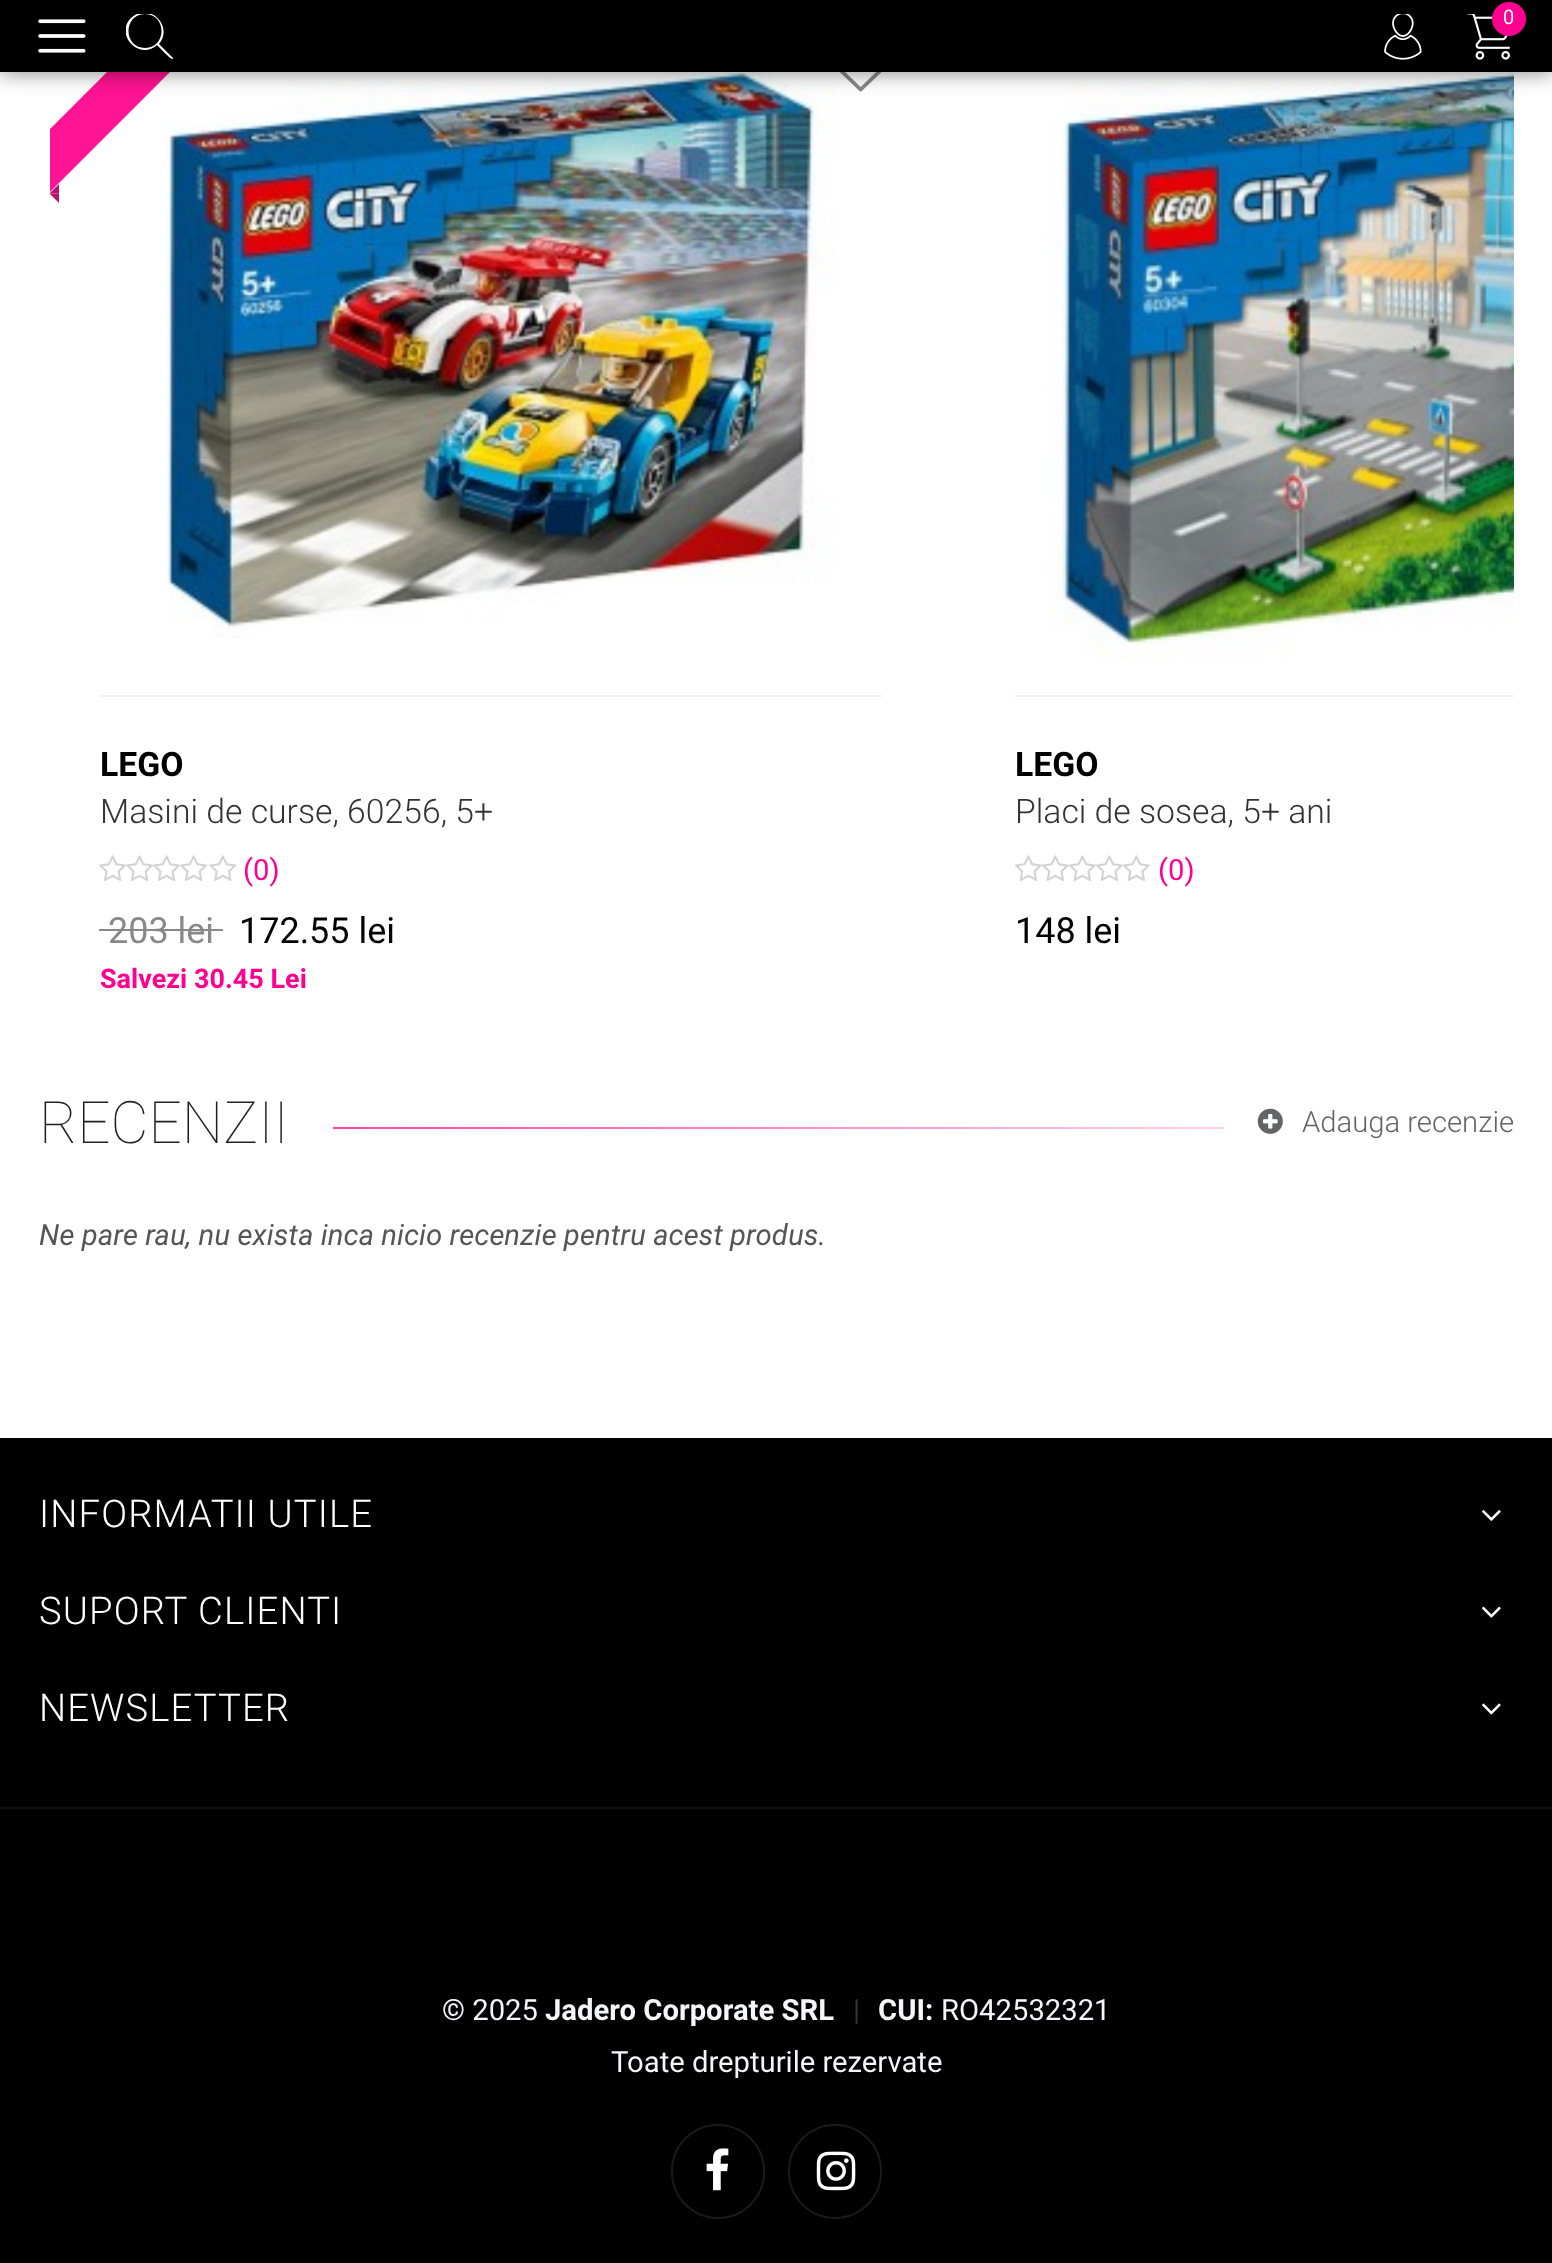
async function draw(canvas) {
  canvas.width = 1552;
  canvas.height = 2263;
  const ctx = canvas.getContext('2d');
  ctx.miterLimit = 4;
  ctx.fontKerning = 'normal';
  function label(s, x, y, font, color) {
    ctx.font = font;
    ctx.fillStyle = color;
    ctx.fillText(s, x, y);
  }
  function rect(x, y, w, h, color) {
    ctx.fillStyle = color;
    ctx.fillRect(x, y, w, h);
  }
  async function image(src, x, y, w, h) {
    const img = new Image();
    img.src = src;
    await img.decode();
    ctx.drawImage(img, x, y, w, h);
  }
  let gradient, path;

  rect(0, 0, 1552, 2263, '#fff');
  await image('assets/img4.png', 166, 72, 672, 566);
  ctx.save();
  ctx.beginPath();
  ctx.rect(50, 2, 213, 225);
  ctx.clip();
  ctx.fillStyle = '#ff1493';
  path = new Path2D('M17 162L208-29L240 2L49 193Z');
  ctx.fill(path);
  ctx.restore();
  await image('assets/img5.png', 840, 72, 42, 20);
  await image('assets/img8.png', 1048, 72, 466, 589);
  ctx.fillStyle = '#00000080';
  ctx.filter = 'blur(11px)';
  ctx.beginPath();
  ctx.rect(0, 0, 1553, 72);
  ctx.fill();
  ctx.filter = 'none';
  rect(0, 0, 1552, 72, '#000');
  await image('assets/img1.png', 38, 19, 48, 34);
  ctx.save();
  ctx.beginPath();
  ctx.rect(126, 14, 47, 47);
  ctx.clip();
  ctx.fillStyle = '#fff';
  path = new Path2D('M173 58L159 44C174 26 149 1 131 18C114 35 140 61 157 45C159 47 171 60 173 59C173 59 173 58 173 58ZM145 48C123 48 123 14 145 14C167 14 167 48 145 48Z');
  ctx.fill(path);
  ctx.restore();
  await image('assets/img2.png', 1384, 14, 38, 46);
  await image('assets/img3.png', 1467, 14, 43, 46);
  ctx.fillStyle = '#ff0090';
  ctx.beginPath();
  ctx.arc(1509, 19, 17, 0, 2 * Math.PI);
  ctx.fill();
  label('0', 1503, 24, '20px Roboto', '#fff');
  ctx.fillStyle = '#b8126a';
  path = new Path2D('M49.5 193.5L59 184V193.5Z');
  ctx.fill(path);
  path = new Path2D('M59 203L49.5 193.5H59Z');
  ctx.fill(path);
  rect(99, 695, 783, 2, '#f1f1f1');
  label('LEGO', 100, 776, 'bold 33.75px Roboto', '#000');
  label('Masini de curse, 60256, 5+', 100, 823, '300 33.75px Roboto', '#333');
  await image('assets/img6.png', 99, 855, 27, 26);
  await image('assets/img6.png', 126, 855, 27, 26);
  await image('assets/img6.png', 153, 855, 27, 26);
  await image('assets/img6.png', 180, 855, 27, 26);
  await image('assets/img7.png', 209, 855, 28, 26);
  label('(0)', 243, 880, '29.25px Roboto', '#ff0090');
  label('203 lei', 108, 943, '36px Roboto', '#888');
  rect(99, 929, 124, 2, '#888');
  label('172.55 lei', 239, 943, '36px Roboto', '#000');
  label('Salvezi 30.45 Lei', 100, 988, 'bold 27px Roboto', '#ff0090');
  rect(1015, 695, 499, 2, '#f1f1f1');
  label('LEGO', 1015, 776, 'bold 33.75px Roboto', '#000');
  label('Placi de sosea, 5+ ani', 1015, 823, '300 33.75px Roboto', '#333');
  await image('assets/img9.png', 1014, 855, 28, 26);
  await image('assets/img10.png', 1042, 855, 27, 26);
  await image('assets/img10.png', 1069, 855, 27, 26);
  await image('assets/img10.png', 1096, 855, 27, 26);
  await image('assets/img10.png', 1123, 855, 27, 26);
  label('(0)', 1158, 880, '29.25px Roboto', '#ff0090');
  label('148 lei', 1015, 943, '36px Roboto', '#000');
  label('RECENZII', 39, 1143, '100 58.5px Roboto', '#231f20');
  gradient = ctx.createLinearGradient(38, 1128, 1514, 1128);
  gradient.addColorStop(0, '#ff1493');
  gradient.addColorStop(1, '#fff');
  ctx.fillStyle = gradient;
  ctx.fillRect(333, 1127, 891, 2);
  await image('assets/img11.png', 1257, 1108, 26, 26);
  label('Adauga recenzie', 1302, 1132, '300 29.25px Roboto', '#636466');
  label('Ne pare rau, nu exista inca nicio recenzie pentru acest produs.', 39, 1245, 'italic 29.25px Roboto', '#555');
  rect(0, 1438, 1552, 369, '#000');
  rect(0, 1807, 1552, 2, '#101010');
  ctx.letterSpacing = '1.1px';
  label('INFORMATII UTILE', 39, 1527, '300 38.25px Roboto', '#fff');
  await image('assets/img12.png', 1482, 1510, 19, 11);
  label('SUPORT CLIENTI', 39, 1624, '300 38.25px Roboto', '#fff');
  await image('assets/img13.png', 1482, 1606, 19, 12);
  label('NEWSLETTER', 39, 1721, '300 38.25px Roboto', '#fff');
  await image('assets/img14.png', 1482, 1703, 19, 12);
  rect(0, 1809, 1552, 454, '#000');
  ctx.letterSpacing = '0px';
  label('© 2025', 442, 2020, '29.25px Roboto', '#f4f6f9');
  label('Jadero Corporate SRL', 545, 2020, 'bold 29.25px Roboto', '#f4f6f9');
  label('|', 853, 2020, '29.25px Roboto', '#333');
  label('CUI:', 878, 2020, 'bold 29.25px Roboto', '#f4f6f9');
  label('RO42532321', 941, 2020, '29.25px Roboto', '#f4f6f9');
  label('Toate drepturile rezervate', 611, 2072, '29.25px Roboto', '#f4f6f9');
  ctx.beginPath();
  ctx.roundRect(672, 2125, 92, 93, 46);
  ctx.strokeStyle = '#1a1a1a';
  ctx.lineWidth = 2;
  ctx.stroke();
  await image('assets/img15.png', 706, 2148, 23, 43);
  ctx.beginPath();
  ctx.roundRect(789, 2125, 92, 93, 46);
  ctx.stroke();
  await image('assets/img16.png', 816, 2151, 40, 40);
}

draw(document.querySelector('canvas'));
